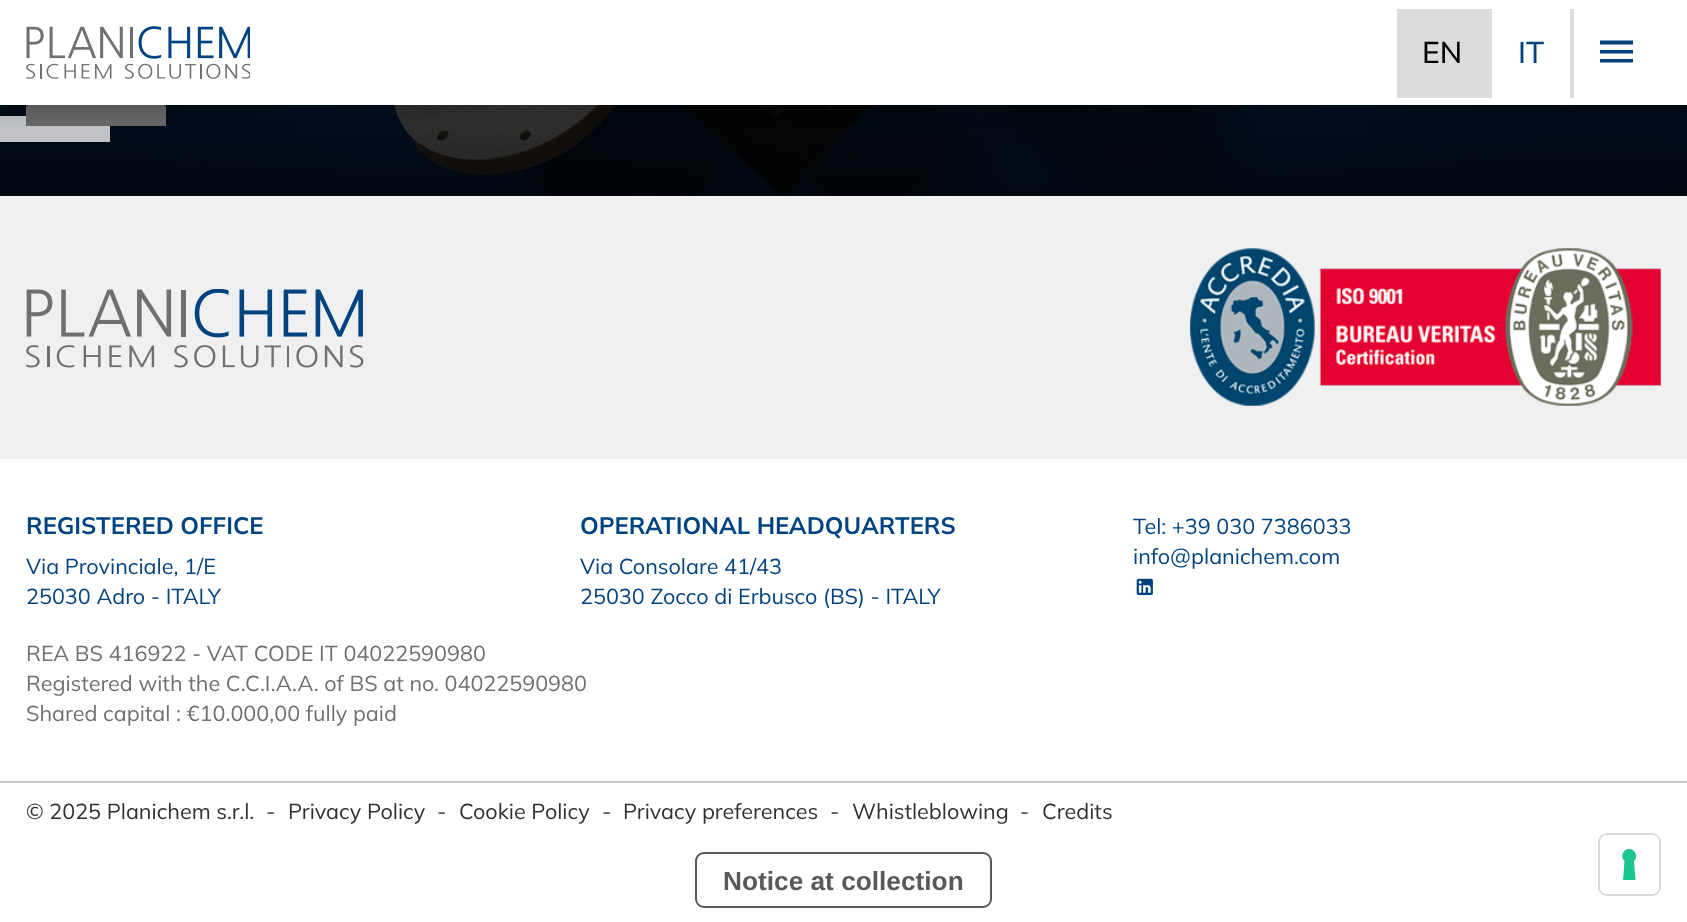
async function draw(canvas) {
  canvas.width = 1687;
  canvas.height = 922;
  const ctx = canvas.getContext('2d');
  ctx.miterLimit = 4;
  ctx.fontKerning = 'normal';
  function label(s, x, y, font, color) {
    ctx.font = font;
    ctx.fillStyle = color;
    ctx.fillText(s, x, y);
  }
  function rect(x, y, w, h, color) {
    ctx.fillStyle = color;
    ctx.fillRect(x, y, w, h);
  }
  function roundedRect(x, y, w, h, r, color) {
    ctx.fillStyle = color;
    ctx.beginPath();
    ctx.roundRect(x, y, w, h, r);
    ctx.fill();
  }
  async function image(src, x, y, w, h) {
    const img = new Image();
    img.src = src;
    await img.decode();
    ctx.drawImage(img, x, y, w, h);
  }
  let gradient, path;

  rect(0, 0, 1687, 922, '#fff');
  await image('assets/img2.png', 0, 105, 1687, 91);
  gradient = ctx.createLinearGradient(844, 196, 844, -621);
  gradient.addColorStop(0, '#000000d9');
  gradient.addColorStop(0.2, '#000000b3');
  gradient.addColorStop(1, '#00000000');
  ctx.fillStyle = gradient;
  ctx.fillRect(0, 105, 1687, 91);
  rect(0, 116, 110, 26, '#ffffffbf');
  rect(26, 105, 140, 21, '#666');
  ctx.fillStyle = '#00000026';
  ctx.filter = 'blur(7px)';
  ctx.beginPath();
  ctx.rect(0, 7, 1687, 105);
  ctx.fill();
  ctx.filter = 'none';
  rect(0, 0, 1687, 105, '#fff');
  await image('assets/img1.png', 26, 26, 224, 53);
  rect(1397, 9, 95, 89, '#dcdcdc');
  label('EN', 1422, 63, '500 30px Mulish', '#000');
  rect(1570, 9, 4, 89, '#dcdcdc');
  label('IT', 1518, 63, '500 30px Mulish', '#014380');
  path = new Path2D('M1600 40.5H1633V44.5H1600ZM1600 50H1633V53.5H1600ZM1600 59H1633V62.5H1600Z');
  ctx.fill(path);
  rect(0, 196, 1687, 263, '#f0f0f0');
  await image('assets/img3.png', 26, 289, 338, 79);
  await image('assets/img4.png', 1190, 248, 471, 158);
  label('REGISTERED OFFICE', 26, 534, 'bold 23.75px Mulish', '#014380');
  label('Via Provinciale, 1/E', 26, 574, '21.6px Mulish', '#014380');
  label('25030 Adro - ITALY', 26, 604, '21.6px Mulish', '#014380');
  label('OPERATIONAL HEADQUARTERS', 580, 534, 'bold 23.75px Mulish', '#014380');
  label('Via Consolare 41/43', 580, 574, '21.6px Mulish', '#014380');
  label('25030 Zocco di Erbusco (BS) - ITALY', 580, 604, '21.6px Mulish', '#014380');
  label('Tel: +39 030 7386033', 1133, 534, '21.6px Mulish', '#014380');
  label('info@planichem.com', 1133, 564, '21.6px Mulish', '#014380');
  await image('assets/img5.png', 1136, 578, 17, 17);
  label('REA BS 416922 - VAT CODE IT 04022590980', 26, 661, '21.6px Mulish', '#6f6f6f');
  label('Registered with the C.C.I.A.A. of BS at no. 04022590980', 26, 691, '21.6px Mulish', '#6f6f6f');
  label('Shared capital : €10.000,00 fully paid', 26, 721, '21.6px Mulish', '#6f6f6f');
  rect(0, 781, 1687, 2, '#c9c9c9');
  label('© 2025 Planichem s.r.l.', 26, 819, '21.6px Mulish', '#303030');
  label('-', 266, 819, '21.6px Mulish', '#303030');
  label('Privacy Policy', 288, 819, '21.6px Mulish', '#303030');
  label('-', 437, 819, '21.6px Mulish', '#303030');
  label('Cookie Policy', 459, 819, '21.6px Mulish', '#303030');
  label('-', 602, 819, '21.6px Mulish', '#303030');
  label('Privacy preferences', 623, 819, '21.6px Mulish', '#303030');
  label('-', 830, 819, '21.6px Mulish', '#303030');
  label('Whistleblowing', 852, 819, '21.6px Mulish', '#303030');
  label('-', 1020, 819, '21.6px Mulish', '#303030');
  label('Credits', 1042, 819, '21.6px Mulish', '#303030');
  ctx.beginPath();
  ctx.roundRect(696, 853, 295, 54, 8);
  ctx.strokeStyle = '#595959';
  ctx.lineWidth = 2;
  ctx.stroke();
  label('Notice at collection', 723, 890, 'bold 26.25px Liberation Sans', '#595959');
  ctx.beginPath();
  ctx.roundRect(1599, 834, 61, 61, 8);
  ctx.strokeStyle = '#d9d9d9';
  ctx.stroke();
  roundedRect(1600, 835, 59, 59, 7, '#fff');
  ctx.fillStyle = '#1cc691';
  path = new Path2D('M1629 849C1635.5 849 1638.5 857 1634 861L1635.5 880H1623L1624.5 861C1620 857 1623 849 1629 849Z');
  ctx.fill(path, 'evenodd');
}

draw(document.querySelector('canvas'));
